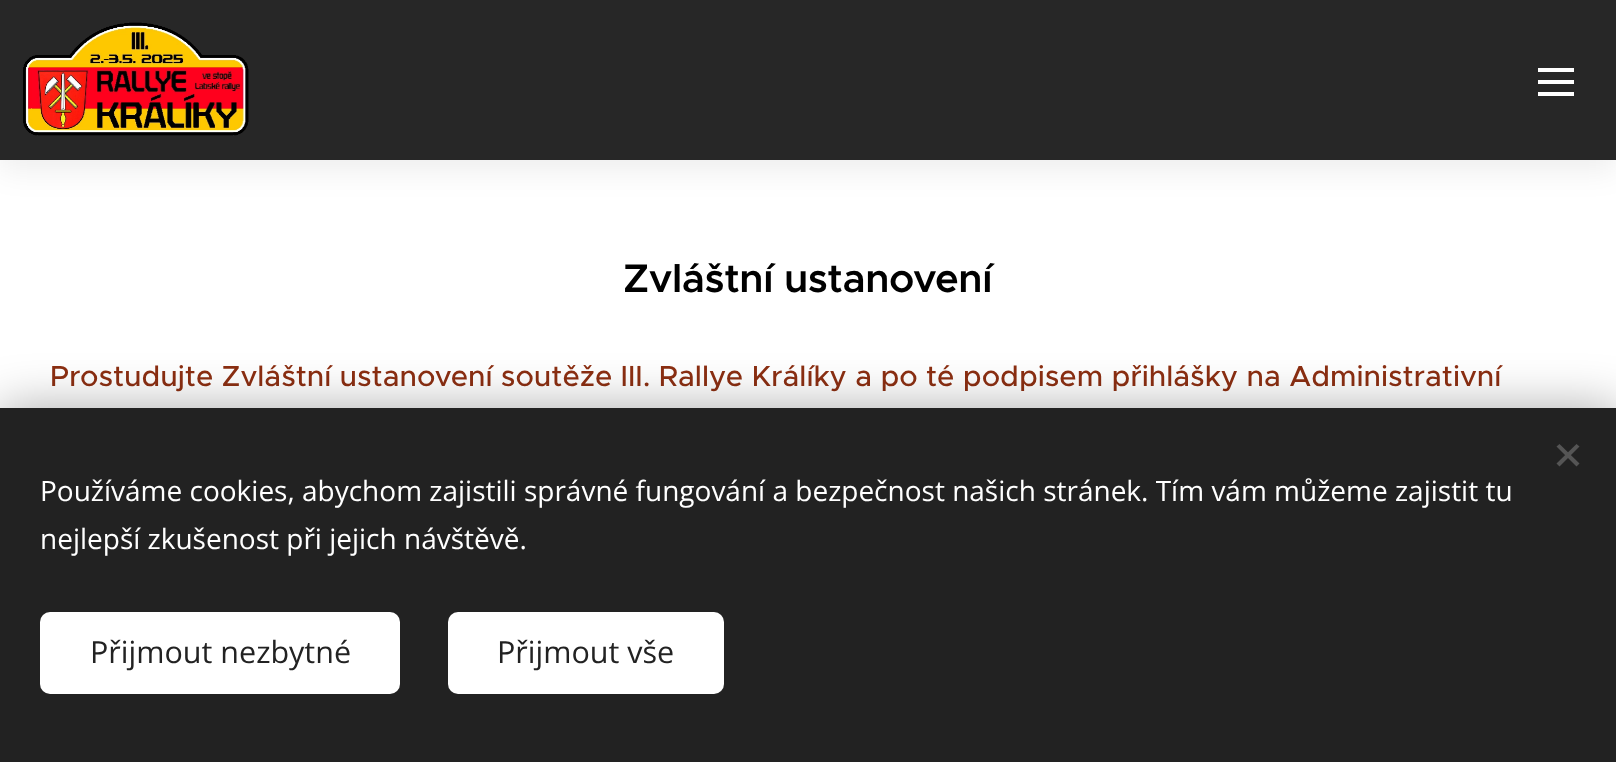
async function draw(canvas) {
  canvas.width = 1616;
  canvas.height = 762;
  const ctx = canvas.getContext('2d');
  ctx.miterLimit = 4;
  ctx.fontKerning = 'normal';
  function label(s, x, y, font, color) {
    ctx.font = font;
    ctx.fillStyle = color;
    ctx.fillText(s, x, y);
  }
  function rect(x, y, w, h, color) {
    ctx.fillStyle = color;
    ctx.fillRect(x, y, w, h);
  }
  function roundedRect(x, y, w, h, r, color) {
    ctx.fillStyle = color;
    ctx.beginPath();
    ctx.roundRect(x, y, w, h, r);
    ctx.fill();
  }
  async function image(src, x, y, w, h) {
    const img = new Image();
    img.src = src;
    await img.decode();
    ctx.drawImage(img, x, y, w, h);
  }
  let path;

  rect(0, 0, 1616, 762, '#fff');
  ctx.fillStyle = '#00000012';
  ctx.filter = 'blur(15px)';
  ctx.beginPath();
  ctx.rect(0, 10, 1616, 160);
  ctx.fill();
  ctx.filter = 'none';
  rect(0, 0, 1616, 160, '#272727');
  await image('assets/img1.png', 23, 22, 226, 114);
  rect(1538, 80, 36, 4, '#fff');
  rect(1538, 68, 36, 4, '#fff');
  rect(1538, 92, 36, 4, '#fff');
  ctx.letterSpacing = '-0.4px';
  label('Zvláštní ustanovení', 623, 292, '600 40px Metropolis', '#000');
  ctx.letterSpacing = '0px';
  label('Prostudujte Zvláštní ustanovení soutěže III. Rallye Králíky a po té podpisem přihlášky na Administrativní', 50, 386, '500 29.2px Metropolis', '#8c2f12');
  ctx.fillStyle = '#00000054';
  ctx.filter = 'blur(25px)';
  ctx.beginPath();
  ctx.rect(0, 408, 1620, 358);
  ctx.fill();
  ctx.filter = 'none';
  rect(0, 408, 1616, 354, '#222');
  ctx.fillStyle = '#555';
  path = new Path2D('M1556.5 463.5L1576.5 444L1579.5 446.5L1559.5 466.5Z');
  ctx.fill(path);
  path = new Path2D('M1559.5 444L1579.5 463.5L1576.5 466.5L1556.5 446.5Z');
  ctx.fill(path);
  label('Používáme cookies, abychom zajistili správné fungování a bezpečnost našich stránek. Tím vám můžeme zajistit tu', 40, 501, '28px Open Sans', '#fff');
  label('nejlepší zkušenost při jejich návštěvě.', 40, 549, '28px Open Sans', '#fff');
  roundedRect(40, 612, 360, 82, 10, '#fff');
  label('Přijmout nezbytné', 90, 663, '30.5px Open Sans', '#222');
  roundedRect(448, 612, 276, 82, 10, '#fff');
  label('Přijmout vše', 497, 663, '30.5px Open Sans', '#222');
}

draw(document.querySelector('canvas'));
